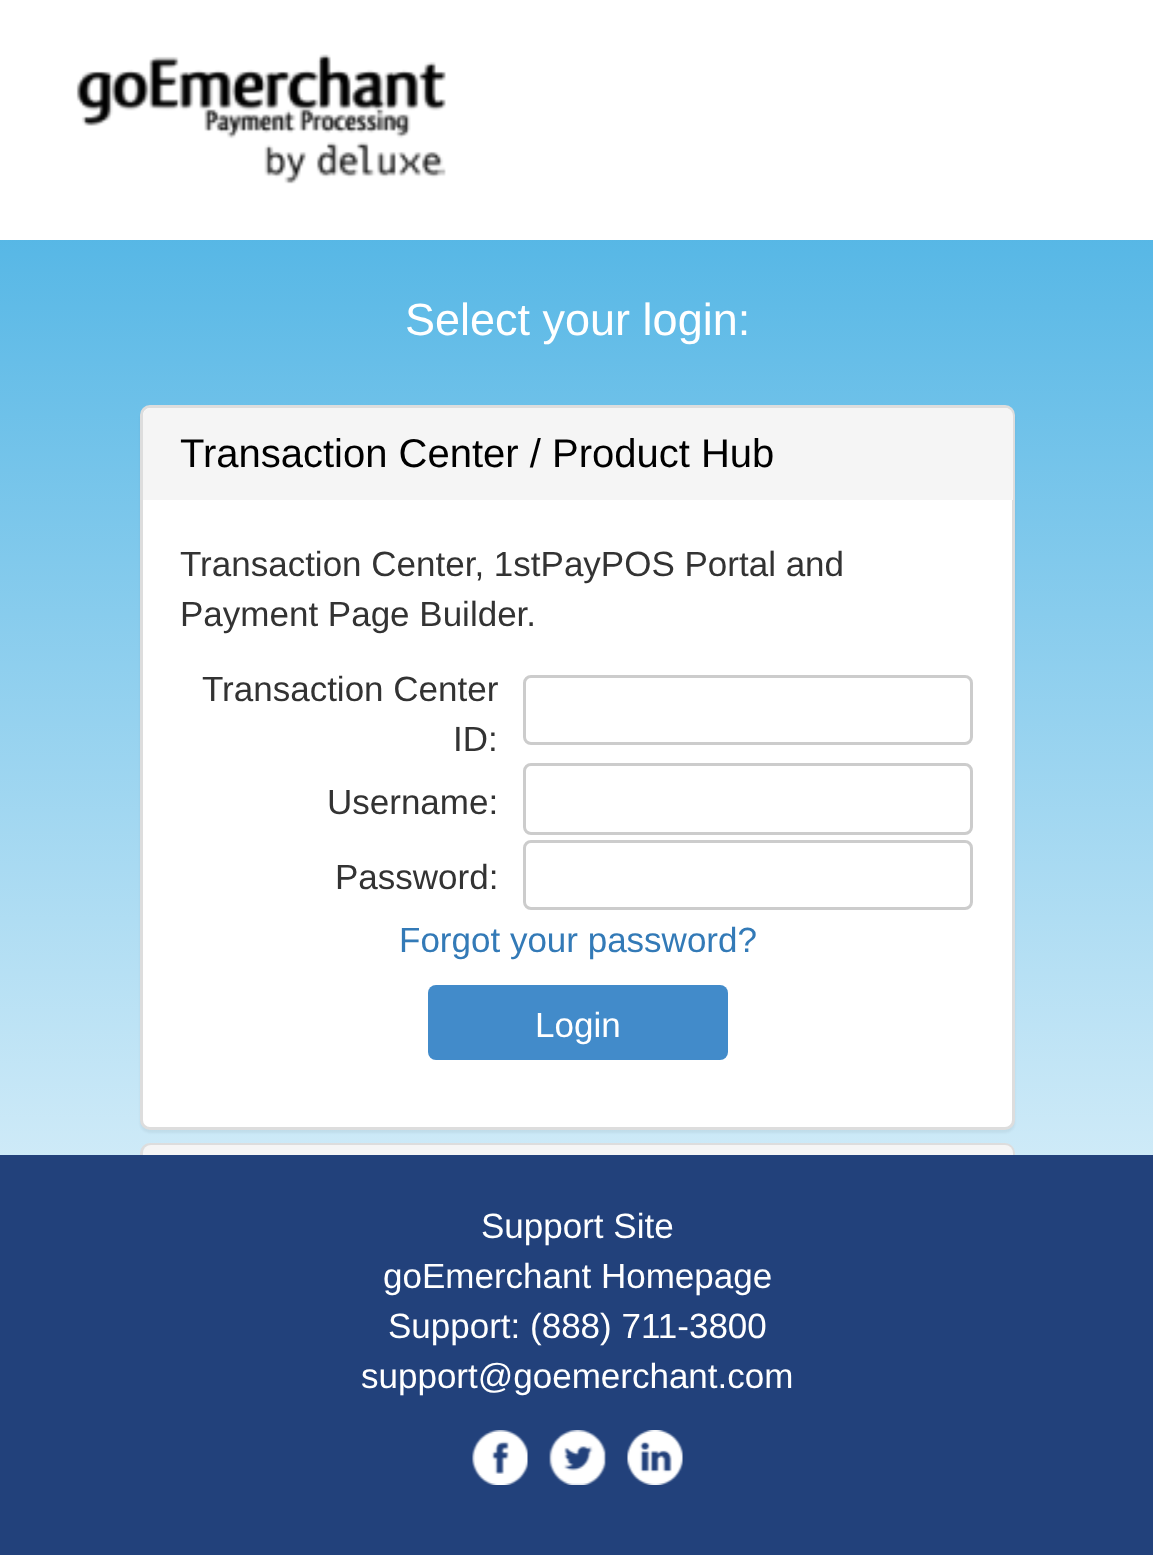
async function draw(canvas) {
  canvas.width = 1153;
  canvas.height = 1555;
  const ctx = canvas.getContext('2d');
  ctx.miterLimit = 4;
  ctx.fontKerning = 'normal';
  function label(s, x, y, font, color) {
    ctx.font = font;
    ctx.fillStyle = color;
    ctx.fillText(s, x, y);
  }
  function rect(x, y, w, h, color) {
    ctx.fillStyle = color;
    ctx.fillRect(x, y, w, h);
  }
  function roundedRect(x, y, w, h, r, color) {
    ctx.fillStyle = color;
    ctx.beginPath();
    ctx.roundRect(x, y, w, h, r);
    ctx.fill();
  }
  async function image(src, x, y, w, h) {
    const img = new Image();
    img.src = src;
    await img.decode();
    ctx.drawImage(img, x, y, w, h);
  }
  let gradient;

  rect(0, 0, 1153, 1555, '#fff');
  gradient = ctx.createLinearGradient(577, 0, 578, 1533);
  gradient.addColorStop(0, '#38aae1');
  gradient.addColorStop(1, '#fff');
  ctx.fillStyle = gradient;
  ctx.fillRect(0, 240, 1153, 915);
  await image('assets/img1.png', 76, 54, 370, 130);
  label('Select your login:', 405, 335, '45px Liberation Sans', '#fff');
  ctx.fillStyle = '#0000000d';
  ctx.filter = 'blur(1px)';
  ctx.beginPath();
  ctx.roundRect(140, 408, 875, 725, 10);
  ctx.fill();
  ctx.filter = 'none';
  ctx.fillStyle = '#fff';
  ctx.beginPath();
  ctx.roundRect(141.5, 406.5, 872, 722, 8.5);
  ctx.fill();
  ctx.strokeStyle = '#ddd';
  ctx.lineWidth = 3;
  ctx.stroke();
  ctx.fillStyle = '#f5f5f5';
  ctx.beginPath();
  ctx.roundRect(143, 408, 870, 92, [8, 8, 0, 0]);
  ctx.fill();
  label('Transaction Center / Product Hub', 180, 467, '40px Liberation Sans', '#000');
  label('Transaction Center, 1stPayPOS Portal and', 180, 576, '35px Liberation Sans', '#333');
  label('Payment Page Builder.', 180, 626, '35px Liberation Sans', '#333');
  label('Transaction Center', 202, 701, '35px Liberation Sans', '#333');
  label('ID:', 453, 751, '35px Liberation Sans', '#333');
  ctx.beginPath();
  ctx.roundRect(524.5, 676.5, 447, 67, 6.5);
  ctx.strokeStyle = '#ccc';
  ctx.stroke();
  label('Username:', 327, 814, '35px Liberation Sans', '#333');
  ctx.beginPath();
  ctx.roundRect(524.5, 764.5, 447, 69, 6.5);
  ctx.stroke();
  label('Password:', 335, 889, '35px Liberation Sans', '#333');
  ctx.beginPath();
  ctx.roundRect(524.5, 841.5, 447, 67, 6.5);
  ctx.stroke();
  label('Forgot your password?', 399, 952, '35px Liberation Sans', '#337ab7');
  roundedRect(428, 985, 300, 75, 8, '#428bca');
  label('Login', 535, 1037, '35px Liberation Sans', '#fff');
  ctx.beginPath();
  ctx.roundRect(141.5, 1144.5, 872, 94, 8.5);
  ctx.strokeStyle = '#ddd';
  ctx.stroke();
  ctx.fillStyle = '#f5f5f5';
  ctx.beginPath();
  ctx.roundRect(143, 1145, 870, 93, [8, 8, 0, 0]);
  ctx.fill();
  rect(0, 1155, 1153, 400, '#22417b');
  label('Support Site', 481, 1238, '35px Liberation Sans', '#fff');
  label('goEmerchant Homepage', 383, 1288, '35px Liberation Sans', '#fff');
  label('Support: (888) 711-3800', 388, 1338, '35px Liberation Sans', '#fff');
  label('support@goemerchant.com', 361, 1388, '35px Liberation Sans', '#fff');
  await image('assets/img2.png', 472, 1430, 56, 55);
  await image('assets/img3.png', 549, 1430, 57, 55);
  await image('assets/img4.png', 627, 1430, 56, 55);
}

draw(document.querySelector('canvas'));
